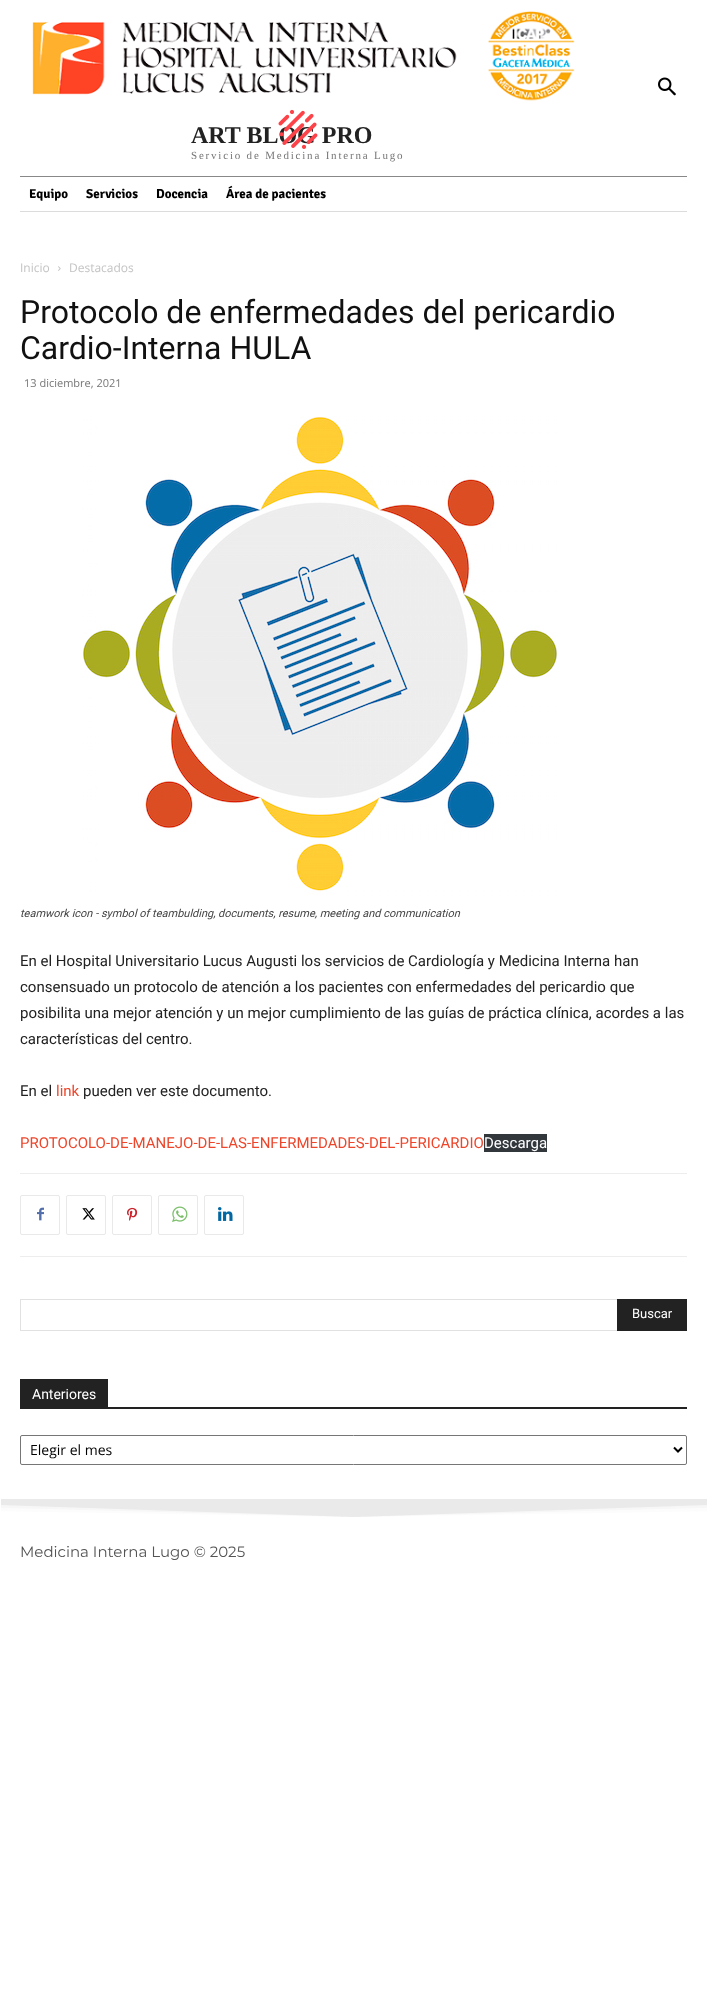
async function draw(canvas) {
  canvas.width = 707;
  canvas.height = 2015;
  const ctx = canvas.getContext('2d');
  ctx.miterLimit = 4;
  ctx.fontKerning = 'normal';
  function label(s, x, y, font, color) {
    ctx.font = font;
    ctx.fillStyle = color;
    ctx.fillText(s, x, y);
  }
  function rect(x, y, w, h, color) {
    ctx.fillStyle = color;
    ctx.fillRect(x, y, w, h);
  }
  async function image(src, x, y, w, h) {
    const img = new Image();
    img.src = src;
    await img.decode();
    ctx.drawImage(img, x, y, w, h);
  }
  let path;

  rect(0, 0, 707, 2015, '#fff');
  await image('assets/img1.png', 658, 77, 18, 19);
  await image('assets/img2.png', 32, 11, 543, 90);
  label('ART BLOG PRO', 191, 143, 'bold 24px Liberation Serif', '#222');
  await image('assets/img3.png', 278, 109, 40, 40);
  ctx.letterSpacing = '1.8px';
  label('Servicio de Medicina Interna Lugo', 191, 159, '11px Liberation Serif', '#767676');
  rect(20, 176, 667, 1, '#888');
  rect(20, 211, 667, 1, '#dcdcde');
  ctx.letterSpacing = '0px';
  label('Equipo', 29, 198, 'bold 13px Signika', '#000');
  label('Servicios', 86, 198, 'bold 13px Signika', '#000');
  label('Docencia', 156, 198, 'bold 13px Signika', '#000');
  label('Área de pacientes', 226, 198, 'bold 13px Signika', '#000');
  label('Inicio', 20, 272, '12px Open Sans', '#c3c3c3');
  await image('assets/img4.png', 58, 266, 3, 5);
  label('Destacados', 69, 272, '12px Open Sans', '#c3c3c3');
  label('Protocolo de enfermedades del pericardio', 20, 323, '32px Roboto', '#111');
  label('Cardio-Interna HULA', 20, 359, '32px Roboto', '#111');
  label('13 diciembre, 2021', 24, 387, '11px Open Sans', '#767676');
  await image('assets/img5.png', 83, 416, 474, 479);
  label('teamwork icon - symbol of teambulding, documents, resume, meeting and communication', 20, 917, 'italic 11px Roboto', '#444');
  label('En el Hospital Universitario Lucus Augusti los servicios de Cardiología y Medicina Interna han', 20, 966, '15px Roboto', '#222');
  label('consensuado un protocolo de atención a los pacientes con enfermedades del pericardio que', 20, 992, '15px Roboto', '#222');
  label('posibilita una mejor atención y un mejor cumplimiento de las guías de práctica clínica, acordes a las', 20, 1018, '15px Roboto', '#222');
  label('características del centro.', 20, 1044, '15px Roboto', '#222');
  label('En el', 20, 1096, '15px Roboto', '#222');
  label('link', 56, 1096, '15px Roboto', '#ed462b');
  label('pueden ver este documento.', 83, 1096, '15px Roboto', '#222');
  label('PROTOCOLO-DE-MANEJO-DE-LAS-ENFERMEDADES-DEL-PERICARDIO', 20, 1148, '15px Roboto', '#ed462b');
  rect(484, 1134, 63, 18, '#32373c');
  label('Descarga', 484, 1148, '15px Roboto', '#fff');
  rect(20, 1173, 667, 1, '#ededed');
  rect(20, 1256, 667, 1, '#ededed');
  ctx.beginPath();
  ctx.roundRect(20.5, 1195.5, 39, 39, 1.5);
  ctx.strokeStyle = '#e9e9e9';
  ctx.stroke();
  await image('assets/img6.png', 37, 1207, 7, 14);
  ctx.beginPath();
  ctx.roundRect(66.5, 1195.5, 39, 39, 1.5);
  ctx.stroke();
  await image('assets/img7.png', 82, 1208, 13, 12);
  ctx.beginPath();
  ctx.roundRect(112.5, 1195.5, 39, 39, 1.5);
  ctx.stroke();
  await image('assets/img8.png', 127, 1207, 11, 14);
  ctx.beginPath();
  ctx.roundRect(158.5, 1195.5, 39, 39, 1.5);
  ctx.stroke();
  await image('assets/img9.png', 172, 1206, 16, 16);
  ctx.beginPath();
  ctx.roundRect(204.5, 1195.5, 39, 39, 1.5);
  ctx.stroke();
  await image('assets/img10.png', 218, 1207, 15, 14);
  rect(20, 1299, 597, 1, '#e1e1e1');
  rect(20, 1330, 597, 1, '#e1e1e1');
  rect(20, 1299, 1, 32, '#e1e1e1');
  rect(617, 1299, 70, 32, '#222');
  label('Buscar', 632, 1318, '13px Roboto', '#fff');
  rect(20, 1407, 667, 2, '#222');
  rect(20, 1379, 88, 28, '#222');
  label('Anteriores', 32, 1399, '14px Roboto', '#fff');
  ctx.beginPath();
  ctx.roundRect(20.5, 1435.5, 666, 29, 1.5);
  ctx.strokeStyle = '#767676';
  ctx.stroke();
  path = new Path2D('M674 1447.5L678 1451.5L682 1447.5');
  ctx.strokeStyle = '#000';
  ctx.lineWidth = 2;
  ctx.stroke(path);
  label('Elegir el mes', 30, 1455, '14px Open Sans', '#000');
  ctx.save();
  ctx.beginPath();
  ctx.rect(1, 1499, 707, 60);
  ctx.clip();
  ctx.fillStyle = '#eaeaea';
  path = new Path2D('M-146 1453V1500L354 1517L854 1500V1453Z');
  ctx.fill(path);
  ctx.fillStyle = '#eaeaea4d';
  path = new Path2D('M-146 1453V1504L354 1517L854 1504V1453Z');
  ctx.fill(path);
  ctx.fillStyle = '#eaeaea26';
  path = new Path2D('M-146 1453V1509L354 1517L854 1509V1453Z');
  ctx.fill(path);
  ctx.restore();
  label('Medicina Interna Lugo © 2025', 20, 1557, '15px Montserrat', '#545454');
}

draw(document.querySelector('canvas'));
